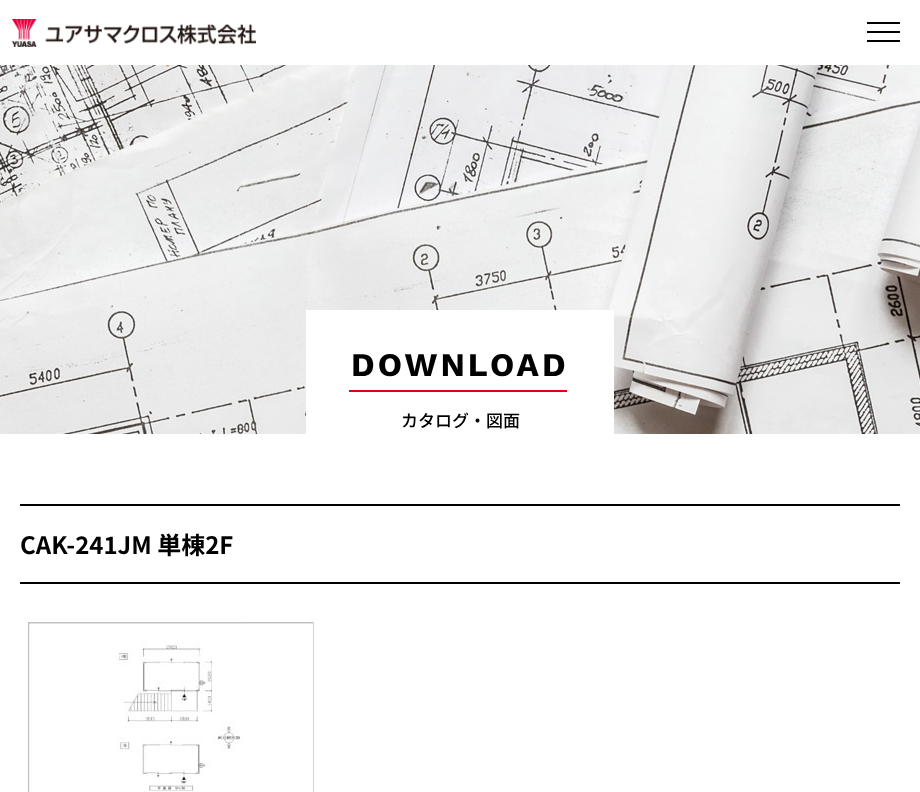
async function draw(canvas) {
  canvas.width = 920;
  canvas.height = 792;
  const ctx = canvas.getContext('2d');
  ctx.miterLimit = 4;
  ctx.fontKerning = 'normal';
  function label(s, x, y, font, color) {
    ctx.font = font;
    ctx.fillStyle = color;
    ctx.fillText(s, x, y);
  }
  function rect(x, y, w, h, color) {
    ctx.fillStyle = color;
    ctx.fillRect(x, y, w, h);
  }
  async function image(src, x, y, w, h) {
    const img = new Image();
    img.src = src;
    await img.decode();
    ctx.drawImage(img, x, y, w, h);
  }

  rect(0, 0, 920, 792, '#fff');
  await image('assets/img1.png', 12, 19, 244, 28);
  rect(867, 22, 33, 2, '#000');
  rect(867, 31, 33, 2, '#000');
  rect(867, 40, 33, 2, '#000');
  await image('assets/img2.png', 0, 65, 920, 369);
  rect(306, 310, 308, 124, '#fff');
  ctx.letterSpacing = '3px';
  label('DOWNLOAD', 351, 376, 'bold 33px Work Sans', '#000');
  rect(349, 390, 218, 2, '#e40210');
  ctx.letterSpacing = '0px';
  label('カタログ・図面', 401, 427, '500 17px Noto Sans JP', '#000');
  rect(20, 504, 880, 2, '#000');
  rect(20, 582, 880, 2, '#000');
  label('CAK-241JM 単棟2F', 20, 554, 'bold 24px Noto Sans JP', '#000');
  await image('assets/img3.png', 28, 617, 288, 175);
}

draw(document.querySelector('canvas'));
